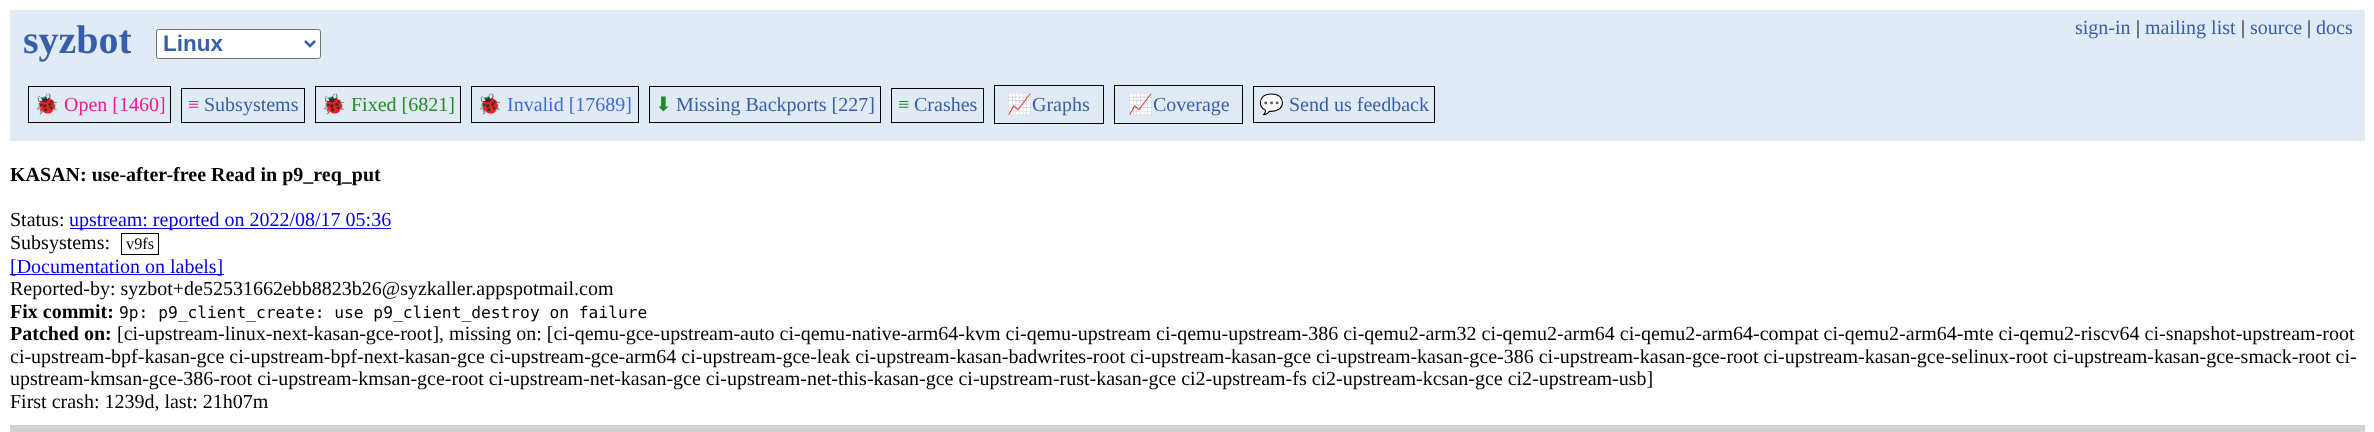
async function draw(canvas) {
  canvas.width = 2374;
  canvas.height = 432;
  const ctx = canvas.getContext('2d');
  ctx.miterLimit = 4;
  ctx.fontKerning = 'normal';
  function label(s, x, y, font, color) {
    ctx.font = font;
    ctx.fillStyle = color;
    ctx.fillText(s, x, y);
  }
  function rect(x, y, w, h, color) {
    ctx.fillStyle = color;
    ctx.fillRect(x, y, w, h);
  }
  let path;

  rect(0, 0, 2374, 432, '#fff');
  rect(10, 10, 2355, 131, '#e0ebf5');
  ctx.save();
  ctx.beginPath();
  ctx.rect(23, 16, 108, 47);
  ctx.clip();
  label('syzbot', 23, 53, 'bold 40px Liberation Serif', '#375eab');
  ctx.restore();
  ctx.fillStyle = '#fff';
  ctx.beginPath();
  ctx.roundRect(156.5, 29.5, 164, 29, 2);
  ctx.fill();
  ctx.strokeStyle = '#767676';
  ctx.stroke();
  path = new Path2D('M305 41L310 46L315 41');
  ctx.strokeStyle = '#375eab';
  ctx.lineWidth = 2.5;
  ctx.stroke(path);
  label('Linux', 163, 51, 'bold 22.5px Liberation Sans', '#375eab');
  label('sign-in', 2075, 34, '20px Liberation Serif', '#375eab');
  label('|', 2136, 34, '20px Liberation Serif', '#000');
  label('mailing list', 2145, 34, '20px Liberation Serif', '#375eab');
  label('|', 2241, 34, '20px Liberation Serif', '#000');
  label('source', 2250, 34, '20px Liberation Serif', '#375eab');
  label('|', 2307, 34, '20px Liberation Serif', '#000');
  label('docs', 2316, 34, '20px Liberation Serif', '#375eab');
  ctx.strokeStyle = '#000';
  ctx.lineWidth = 1;
  ctx.strokeRect(28.5, 86.5, 142, 36);
  label('🐞', 34, 111, '20px Noto Color Emoji', '#ff1493');
  label('Open [1460]', 64, 111, '20px Liberation Serif', '#ff1493');
  ctx.strokeRect(181.5, 88.5, 123, 34);
  label('≡', 188, 111, '20px Liberation Serif', '#ff1493');
  label('Subsystems', 204, 111, '20px Liberation Serif', '#375eab');
  ctx.strokeRect(315.5, 86.5, 145, 36);
  label('🐞', 321, 111, '20px Noto Color Emoji', '#228b22');
  label('Fixed [6821]', 351, 111, '20px Liberation Serif', '#228b22');
  ctx.strokeRect(471.5, 86.5, 167, 36);
  label('🐞', 477, 111, '20px Noto Color Emoji', '#4169e1');
  label('Invalid [17689]', 507, 111, '20px Liberation Serif', '#4169e1');
  ctx.strokeRect(649.5, 86.5, 231, 36);
  label('⬇', 655, 111, '20px DejaVu Sans', '#228b22');
  label('Missing Backports [227]', 676, 111, '20px Liberation Serif', '#375eab');
  ctx.strokeRect(891.5, 88.5, 92, 34);
  label('≡', 898, 111, '20px Liberation Serif', '#228b22');
  label('Crashes', 914, 111, '20px Liberation Serif', '#375eab');
  ctx.strokeRect(994.5, 85.5, 109, 38);
  label('📈', 1007, 111, '20px Noto Color Emoji', '#ff8c00');
  label('Graphs', 1032, 111, '20px Liberation Serif', '#375eab');
  ctx.strokeRect(1114.5, 85.5, 128, 38);
  label('📈', 1128, 111, '20px Noto Color Emoji', '#ff8c00');
  label('Coverage', 1153, 111, '20px Liberation Serif', '#375eab');
  ctx.strokeRect(1253.5, 86.5, 181, 36);
  label('💬', 1259, 111, '20px Noto Color Emoji', '#228b22');
  label('Send us feedback', 1289, 111, '20px Liberation Serif', '#375eab');
  label('KASAN: use-after-free Read in p9_req_put', 10, 181, 'bold 20px Liberation Serif', '#000');
  label('Status:', 10, 226, '20px Liberation Serif', '#000');
  rect(70, 228, 321, 1, '#00e');
  label('upstream: reported on 2022/08/17 05:36', 69, 226, '20px Liberation Serif', '#00e');
  label('Subsystems:', 10, 249, '20px Liberation Serif', '#000');
  ctx.strokeRect(121.5, 233.5, 37, 21);
  label('v9fs', 126, 249, '16.25px Liberation Serif', '#000');
  rect(10, 274, 214, 1, '#00e');
  label('[Documentation on labels]', 10, 273, '20px Liberation Serif', '#00e');
  label('Reported-by: syzbot+de52531662ebb8823b26@syzkaller.appspotmail.com', 10, 295, '20px Liberation Serif', '#000');
  label('Fix commit:', 10, 318, 'bold 20px Liberation Serif', '#000');
  label('9p: p9_client_create: use p9_client_destroy on failure', 119, 318, '16.25px DejaVu Sans Mono', '#000');
  label('Patched on:', 10, 340, 'bold 20px Liberation Serif', '#000');
  label('[ci-upstream-linux-next-kasan-gce-root], missing on: [ci-qemu-gce-upstream-auto ci-qemu-native-arm64-kvm ci-qemu-upstream ci-qemu-upstream-386 ci-qemu2-arm32 ci-qemu2-arm64 ci-qemu2-arm64-compat ci-qemu2-arm64-mte ci-qemu2-riscv64 ci-snapshot-upstream-root', 117, 340, '20px Liberation Serif', '#000');
  label('ci-upstream-bpf-kasan-gce ci-upstream-bpf-next-kasan-gce ci-upstream-gce-arm64 ci-upstream-gce-leak ci-upstream-kasan-badwrites-root ci-upstream-kasan-gce ci-upstream-kasan-gce-386 ci-upstream-kasan-gce-root ci-upstream-kasan-gce-selinux-root ci-upstream-kasan-gce-smack-root ci-', 10, 363, '20px Liberation Serif', '#000');
  label('upstream-kmsan-gce-386-root ci-upstream-kmsan-gce-root ci-upstream-net-kasan-gce ci-upstream-net-this-kasan-gce ci-upstream-rust-kasan-gce ci2-upstream-fs ci2-upstream-kcsan-gce ci2-upstream-usb]', 10, 385, '20px Liberation Serif', '#000');
  label('First crash: 1239d, last: 21h07m', 10, 408, '20px Liberation Serif', '#000');
  ctx.strokeStyle = '#d3d3d3';
  ctx.strokeRect(10.5, 425.5, 2354, 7);
  rect(11, 426, 2353, 6, '#d3d3d3');
}

draw(document.querySelector('canvas'));
